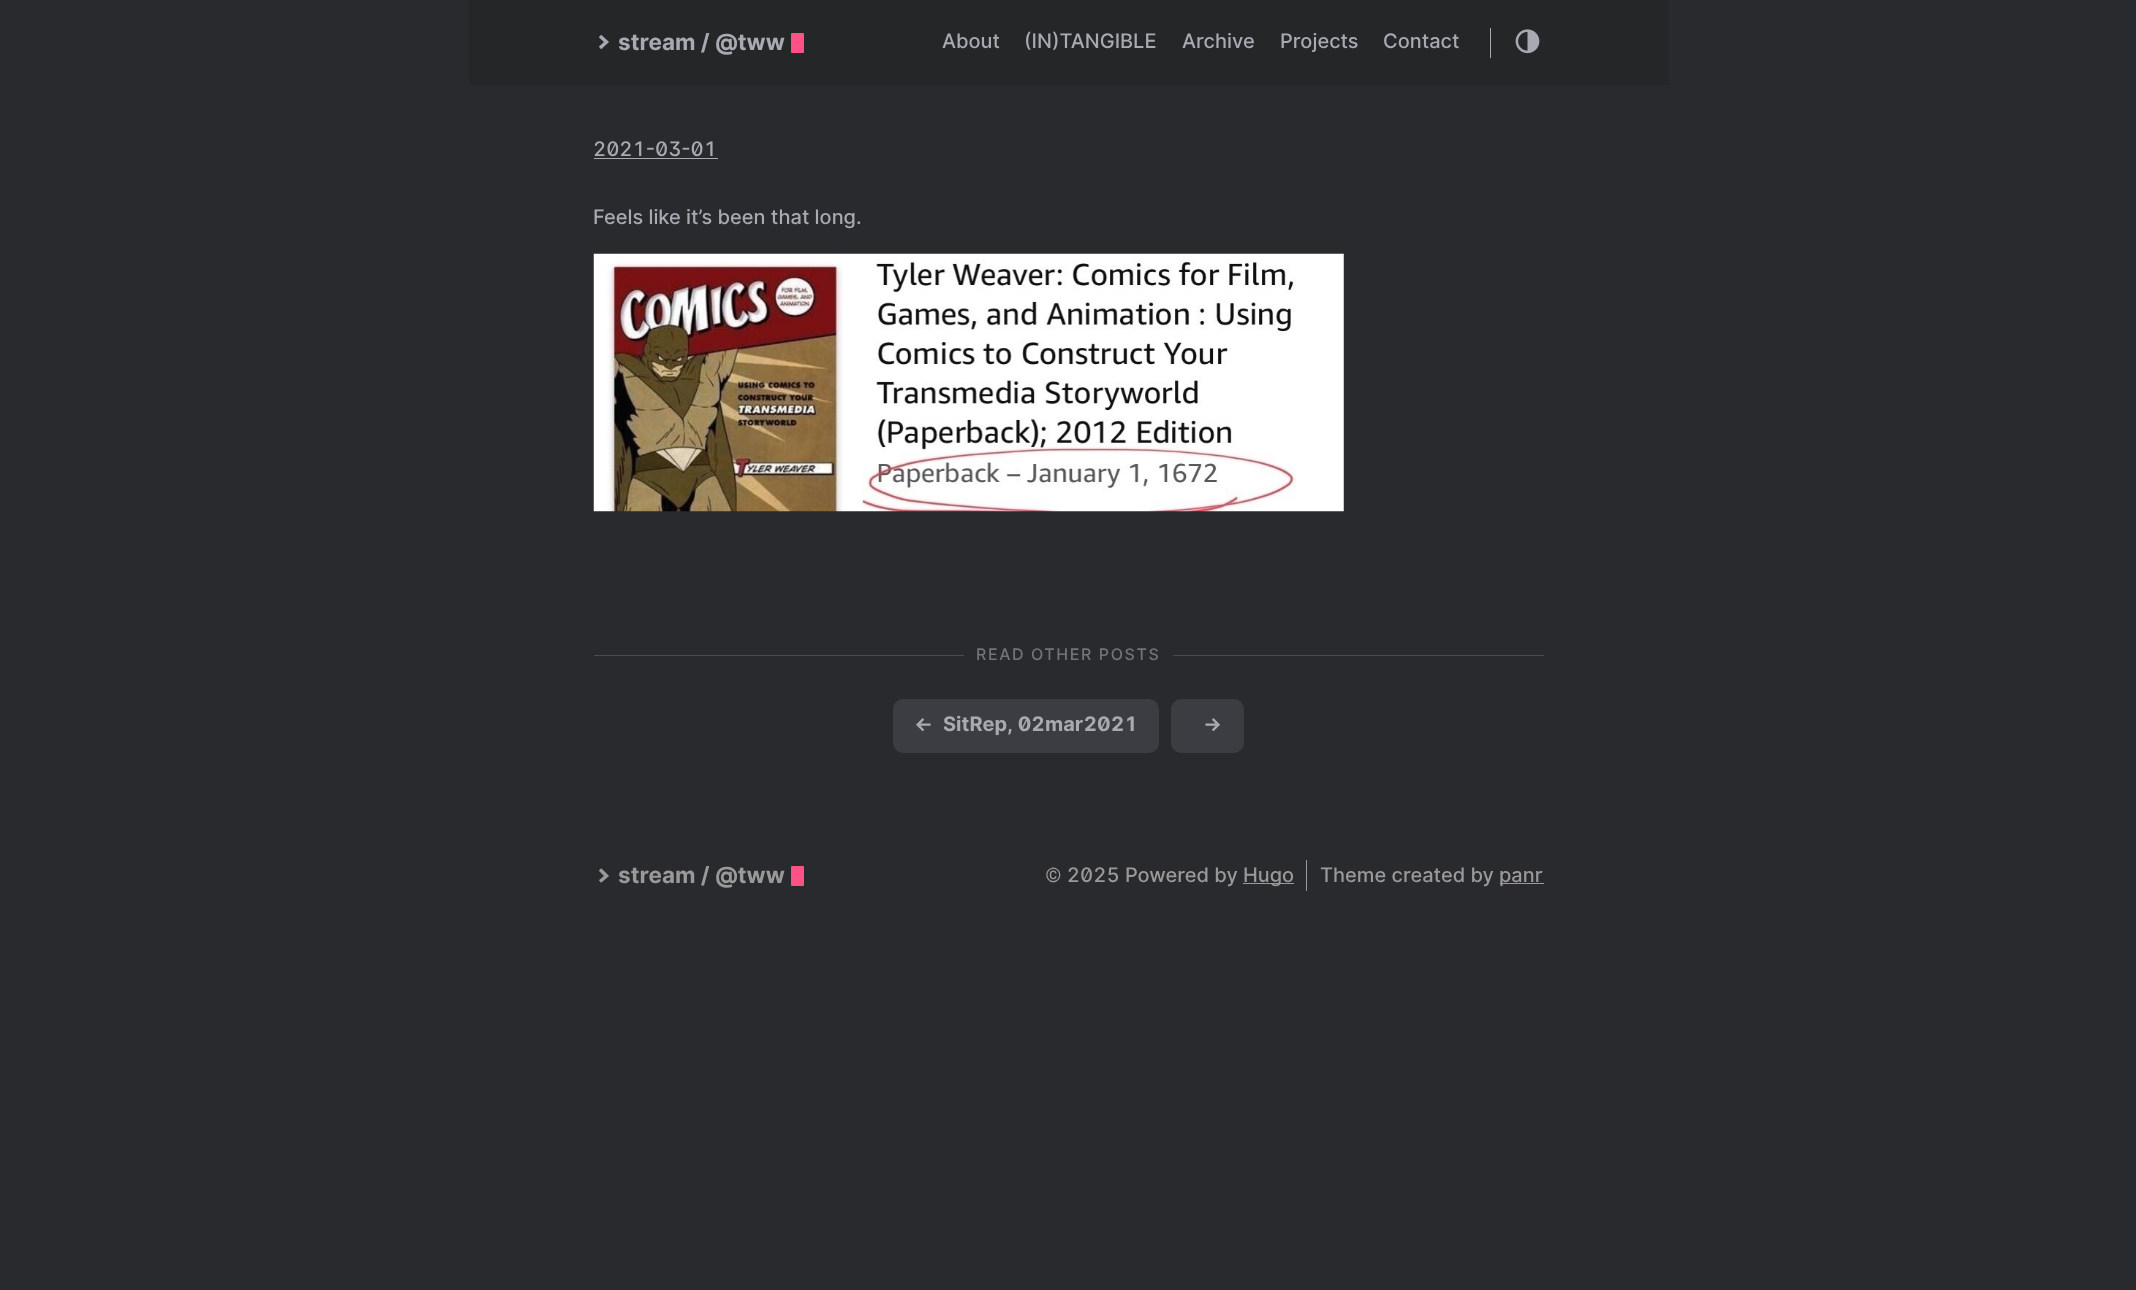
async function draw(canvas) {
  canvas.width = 2136;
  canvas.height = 1290;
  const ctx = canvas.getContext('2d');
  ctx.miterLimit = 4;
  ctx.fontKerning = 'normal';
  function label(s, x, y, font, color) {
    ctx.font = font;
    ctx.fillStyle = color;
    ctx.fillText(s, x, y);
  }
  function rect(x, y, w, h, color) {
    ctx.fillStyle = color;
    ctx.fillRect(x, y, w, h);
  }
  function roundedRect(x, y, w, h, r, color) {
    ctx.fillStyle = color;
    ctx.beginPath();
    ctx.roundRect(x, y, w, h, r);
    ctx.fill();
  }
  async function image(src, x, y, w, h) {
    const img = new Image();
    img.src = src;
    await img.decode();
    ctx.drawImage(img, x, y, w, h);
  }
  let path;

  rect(0, 0, 2136, 1290, '#292a2d');
  rect(469, 0, 1200, 85, '#252627');
  path = new Path2D('M600 36L606.5 42L600 48');
  ctx.strokeStyle = '#a9a9b3';
  ctx.lineWidth = 3.5;
  ctx.stroke(path);
  label('stream / @tww', 618, 50, 'bold 22.5px Inter', '#a9a9b3');
  roundedRect(791, 33, 13, 20, 1, '#fe5186');
  rect(1490, 28, 1, 30, '#a9a9b3');
  label('About', 942, 48, '500 20px Inter', '#a9a9b3');
  label('(IN)TANGIBLE', 1024, 48, '500 20px Inter', '#a9a9b3');
  label('Archive', 1182, 48, '500 20px Inter', '#a9a9b3');
  label('Projects', 1280, 48, '500 20px Inter', '#a9a9b3');
  label('Contact', 1383, 48, '500 20px Inter', '#a9a9b3');
  await image('assets/img1.png', 1515, 29, 25, 25);
  label('2021-03-01', 593, 156, '500 20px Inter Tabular', '#a9a9b3');
  rect(594, 158, 124, 1, '#a9a9b3');
  label('Feels like it’s been that long.', 593, 224, '500 20px Inter', '#a9a9b3');
  await image('assets/img2.png', 593, 253, 751, 259);
  rect(594, 655, 950, 1, '#4a4b50');
  rect(964, 655, 209, 1, '#292a2d');
  ctx.letterSpacing = '1.6px';
  label('READ OTHER POSTS', 976, 660, '500 16px Inter', '#73747b');
  roundedRect(893, 699, 266, 54, 10, '#3b3d42');
  ctx.letterSpacing = '0px';
  label('←', 914, 731, 'bold 20px Inter', '#a9a9b3');
  label('SitRep, 02mar2021', 943, 731, 'bold 20px Inter Tabular', '#a9a9b3');
  roundedRect(1171, 699, 73, 54, 10, '#3b3d42');
  label('→', 1203, 731, 'bold 20px Inter', '#a9a9b3');
  path = new Path2D('M600 869.5L606.5 876L600 881.5');
  ctx.strokeStyle = '#999';
  ctx.stroke(path);
  label('stream / @tww', 618, 883, 'bold 22.5px Inter', '#999');
  roundedRect(791, 866, 13, 20, 1, '#fe5186');
  rect(1306, 860, 1, 31, '#999');
  label('© 2025 Powered by', 1045, 882, '500 20px Inter Tabular', '#999');
  rect(1243, 883, 51, 1, '#999');
  label('Hugo', 1243, 882, '500 20px Inter', '#999');
  label('Theme created by', 1320, 882, '500 20px Inter', '#999');
  rect(1500, 883, 44, 1, '#999');
  label('panr', 1499, 882, '500 20px Inter', '#999');
}

draw(document.querySelector('canvas'));
